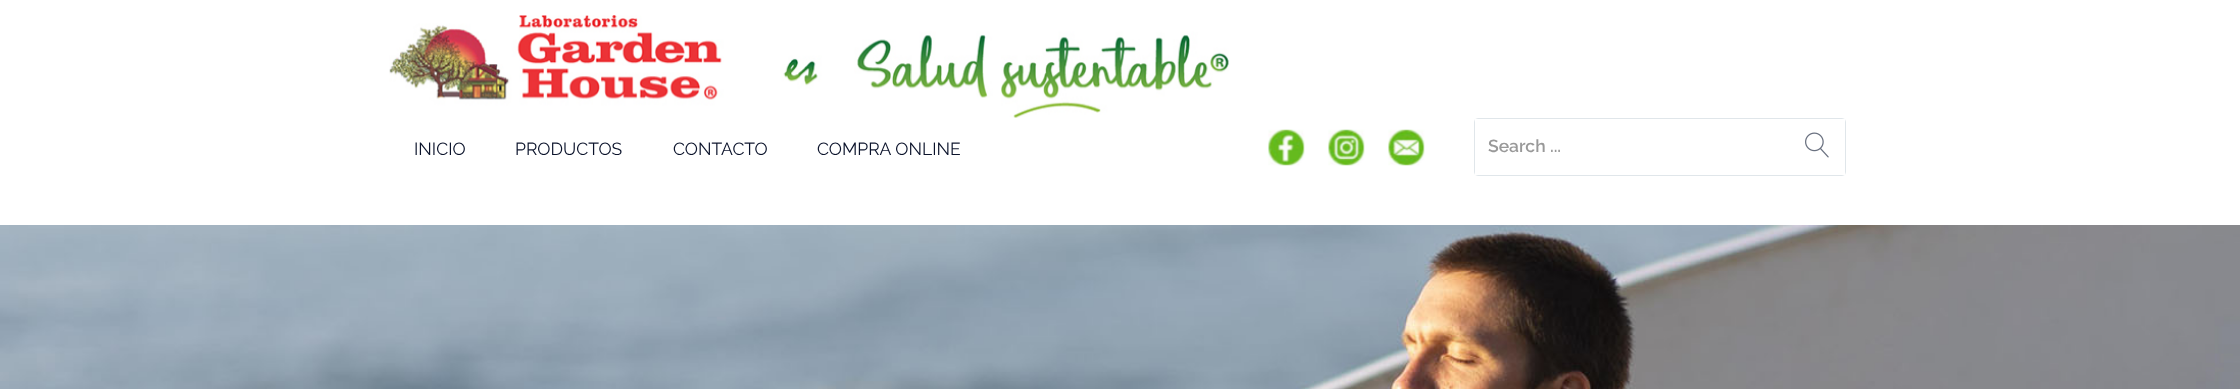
async function draw(canvas) {
  canvas.width = 2240;
  canvas.height = 389;
  const ctx = canvas.getContext('2d');
  ctx.miterLimit = 4;
  ctx.fontKerning = 'normal';
  function label(s, x, y, font, color) {
    ctx.font = font;
    ctx.fillStyle = color;
    ctx.fillText(s, x, y);
  }
  function rect(x, y, w, h, color) {
    ctx.fillStyle = color;
    ctx.fillRect(x, y, w, h);
  }
  async function image(src, x, y, w, h) {
    const img = new Image();
    img.src = src;
    await img.decode();
    ctx.drawImage(img, x, y, w, h);
  }

  rect(0, 0, 2240, 389, '#fff');
  await image('assets/img1.png', 389, 15, 840, 103);
  label('INICIO', 414, 155, '17.5px Raleway', '#0b132b');
  label('PRODUCTOS', 515, 155, '17.5px Raleway', '#0b132b');
  label('CONTACTO', 673, 155, '17.5px Raleway', '#0b132b');
  label('COMPRA ONLINE', 817, 155, '17.5px Raleway', '#0b132b');
  await image('assets/img2.png', 1268, 129, 37, 37);
  await image('assets/img3.png', 1328, 129, 37, 37);
  await image('assets/img4.png', 1388, 129, 37, 37);
  ctx.beginPath();
  ctx.roundRect(1474.5, 118.5, 371, 57, 3.5);
  ctx.strokeStyle = '#e0e6ea';
  ctx.stroke();
  rect(1475, 119, 370, 56, '#fff');
  label('Search ...', 1488, 152, '600 17.5px Raleway', '#999');
  await image('assets/img5.png', 1805, 132, 24, 26);
  await image('assets/img6.png', 0, 225, 2240, 164);
}

draw(document.querySelector('canvas'));
